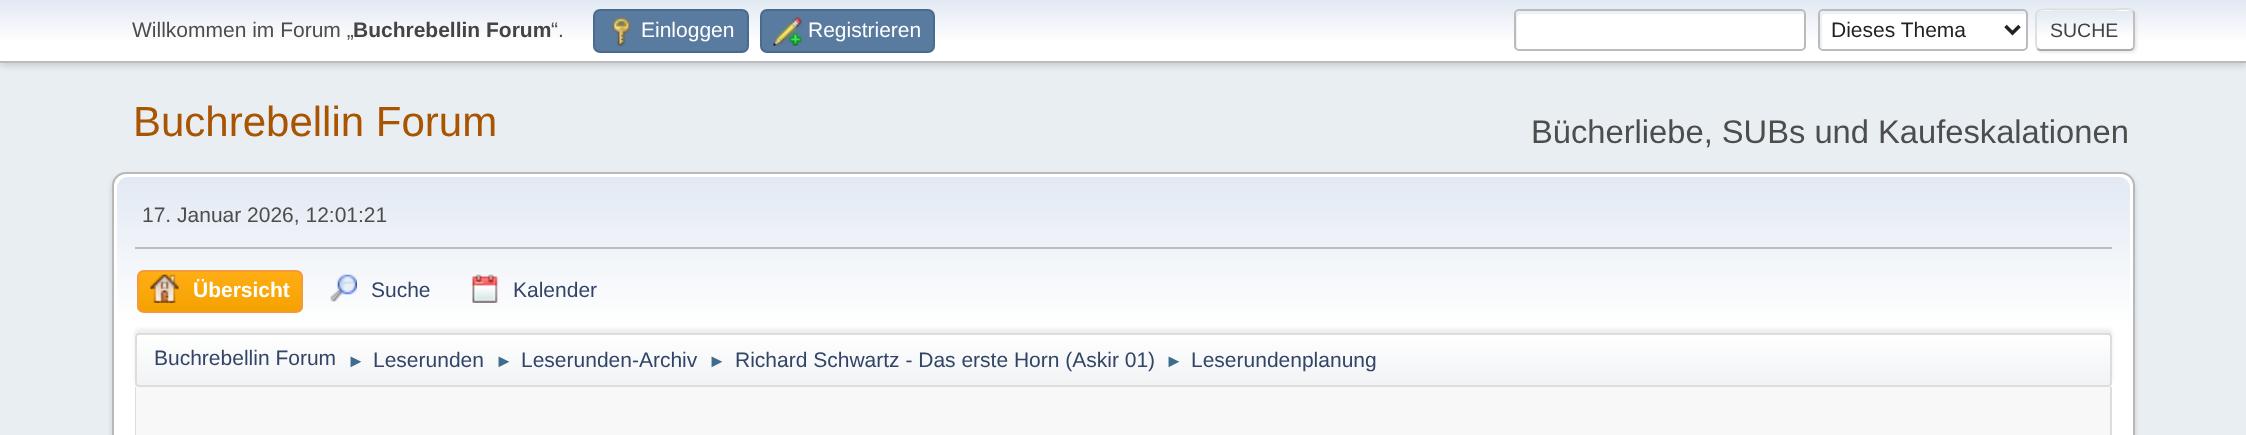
async function draw(canvas) {
  canvas.width = 2246;
  canvas.height = 435;
  const ctx = canvas.getContext('2d');
  ctx.miterLimit = 4;
  ctx.fontKerning = 'normal';
  function label(s, x, y, font, color) {
    ctx.font = font;
    ctx.fillStyle = color;
    ctx.fillText(s, x, y);
  }
  function rect(x, y, w, h, color) {
    ctx.fillStyle = color;
    ctx.fillRect(x, y, w, h);
  }
  function roundedRect(x, y, w, h, r, color) {
    ctx.fillStyle = color;
    ctx.beginPath();
    ctx.roundRect(x, y, w, h, r);
    ctx.fill();
  }
  async function image(src, x, y, w, h) {
    const img = new Image();
    img.src = src;
    await img.decode();
    ctx.drawImage(img, x, y, w, h);
  }
  let gradient, path;

  rect(0, 0, 2246, 435, '#e9eef2');
  ctx.fillStyle = '#00000029';
  ctx.filter = 'blur(3.5px)';
  ctx.beginPath();
  ctx.rect(0, 2, 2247, 63);
  ctx.fill();
  ctx.filter = 'none';
  gradient = ctx.createLinearGradient(1124, 0, 1124, 61);
  gradient.addColorStop(0, '#e2e9f3');
  gradient.addColorStop(0.7, '#fff');
  ctx.fillStyle = gradient;
  ctx.fillRect(0, 0, 2246, 61);
  rect(0, 61, 2246, 2, '#bbb');
  label('Willkommen im Forum „', 132, 37, '21px Liberation Sans', '#4d4d4d');
  label('Buchrebellin Forum', 353, 37, 'bold 21px Liberation Sans', '#444');
  label('“.', 551, 37, '21px Liberation Sans', '#4d4d4d');
  ctx.fillStyle = '#597b9f';
  ctx.beginPath();
  ctx.roundRect(594, 10, 154, 42, 6);
  ctx.fill();
  ctx.strokeStyle = '#4a6b8c';
  ctx.lineWidth = 2;
  ctx.stroke();
  await image('assets/img1.png', 612, 17, 19, 29);
  label('Einloggen', 641, 37, '21px Liberation Sans', '#fff');
  ctx.fillStyle = '#597b9f';
  ctx.beginPath();
  ctx.roundRect(761, 10, 173, 42, 6);
  ctx.fill();
  ctx.stroke();
  await image('assets/img2.png', 773, 17, 29, 29);
  label('Registrieren', 808, 37, '21px Liberation Sans', '#fff');
  roundedRect(1514, 9, 292, 42, 5, '#fff');
  ctx.fillStyle = '#ecf1f8';
  path = new Path2D('M1521 14H1802L1804 15C1804 13 1802 11 1800 11H1520C1518 11 1516 13 1516 15V45C1516 46 1516 47 1517 48V18C1517 16 1519 14 1521 14Z');
  ctx.fill(path);
  ctx.beginPath();
  ctx.roundRect(1515, 10, 290, 40, 4);
  ctx.strokeStyle = '#bbb';
  ctx.stroke();
  roundedRect(1818, 9, 210, 42, 5, '#fff');
  ctx.fillStyle = '#ecf1f8';
  path = new Path2D('M1825 14H2025L2027 15C2027 13 2025 11 2023 11H1824C1822 11 1820 13 1820 15V45C1820 46 1821 48 1822 48V18C1822 16 1823 14 1825 14Z');
  ctx.fill(path);
  ctx.beginPath();
  ctx.roundRect(1819, 10, 208, 40, 4);
  ctx.stroke();
  path = new Path2D('M2005.5 26L2012.5 33L2019.5 26');
  ctx.strokeStyle = '#222';
  ctx.lineWidth = 3.5;
  ctx.stroke(path);
  label('Dieses Thema', 1831, 37, '21px Liberation Sans', '#222');
  ctx.fillStyle = '#dddddd91';
  ctx.filter = 'blur(1px)';
  ctx.beginPath();
  ctx.roundRect(2037, 11, 100, 42, 5);
  ctx.fill();
  ctx.filter = 'none';
  ctx.save();
  ctx.beginPath();
  ctx.roundRect(2035, 9, 100, 42, 5);
  ctx.clip();
  gradient = ctx.createLinearGradient(2085, -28, 2085, 11);
  gradient.addColorStop(0, '#e2e9f3');
  gradient.addColorStop(0.7, '#fff');
  ctx.fillStyle = gradient;
  ctx.fillRect(2035, 9, 100, 2);
  gradient = ctx.createLinearGradient(2085, 10, 2085, 49);
  gradient.addColorStop(0, '#e2e9f3');
  gradient.addColorStop(0.7, '#fff');
  ctx.fillStyle = gradient;
  ctx.fillRect(2035, 11, 100, 38);
  gradient = ctx.createLinearGradient(2085, 49, 2085, 88);
  gradient.addColorStop(0, '#e2e9f3');
  gradient.addColorStop(0.7, '#fff');
  ctx.fillStyle = gradient;
  ctx.fillRect(2035, 49, 100, 2);
  ctx.restore();
  path = new Path2D('M2133 11C2133.5 11.5 2134 13 2134 14V45.5C2134 46.5 2133.5 48 2133 48.5');
  ctx.strokeStyle = '#bbb';
  ctx.lineWidth = 1.8;
  ctx.stroke(path);
  path = new Path2D('M2133 48.5C2132 49.5 2131 50 2130 50H2040.5C2039.5 50 2038 49.5 2037.5 48.5');
  ctx.strokeStyle = '#aaa';
  ctx.stroke(path);
  path = new Path2D('M2037.5 48.5C2035.5 46.5 2036 42.5 2036 40V30C2036 7 2032.5 9.5 2055.5 9.5H2115C2115 9.5 2129.5 7.5 2133 11');
  ctx.strokeStyle = '#ddd';
  ctx.stroke(path);
  label('SUCHE', 2050, 37, '19.5px Liberation Sans', '#444');
  label('Buchrebellin Forum', 133, 136, '42px Liberation Sans', '#a85400');
  label('Bücherliebe, SUBs und Kaufeskalationen', 1531, 143, '32.7px Liberation Sans', '#4d4d4d');
  ctx.fillStyle = '#00000024';
  ctx.filter = 'blur(2.5px)';
  ctx.beginPath();
  ctx.roundRect(112, 175, 2023, 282, 14);
  ctx.fill();
  ctx.filter = 'none';
  ctx.fillStyle = '#fff';
  ctx.beginPath();
  ctx.roundRect(113, 173, 2021, 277, 13);
  ctx.fill();
  ctx.strokeStyle = '#b8b8b8';
  ctx.lineWidth = 2;
  ctx.stroke();
  gradient = ctx.createLinearGradient(1124, 177, 1124, 390);
  gradient.addColorStop(0, '#e2e9f3');
  gradient.addColorStop(0.7, '#fff');
  ctx.fillStyle = gradient;
  ctx.beginPath();
  ctx.roundRect(117, 177, 2013, 213, [11, 11, 0, 0]);
  ctx.fill();
  rect(135, 247, 1977, 2, '#bbb');
  label('17. Januar 2026, 12:01:21', 142, 222, '21px Liberation Sans', '#4d4d4d');
  ctx.save();
  ctx.beginPath();
  ctx.roundRect(137, 270, 166, 43, 7);
  ctx.clip();
  gradient = ctx.createLinearGradient(220, 271, 220, 312);
  gradient.addColorStop(0, '#ffae14');
  gradient.addColorStop(1, '#f5a100');
  ctx.fillStyle = gradient;
  ctx.fillRect(137, 271, 166, 41);
  ctx.restore();
  ctx.beginPath();
  ctx.roundRect(138, 271, 164, 41, 6);
  ctx.strokeStyle = '#f49a3a';
  ctx.stroke();
  await image('assets/img3.png', 150, 274, 29, 29);
  label('Übersicht', 193, 297, 'bold 21px Liberation Sans', '#fff');
  await image('assets/img4.png', 330, 274, 27, 28);
  label('Suche', 371, 297, '21px Liberation Sans', '#346');
  await image('assets/img5.png', 472, 274, 26, 29);
  label('Kalender', 513, 297, '21px Liberation Sans', '#346');
  ctx.fillStyle = '#00000014';
  ctx.filter = 'blur(2px)';
  ctx.beginPath();
  ctx.roundRect(135, 329, 1977, 54, 4);
  ctx.fill();
  ctx.filter = 'none';
  ctx.save();
  ctx.beginPath();
  ctx.roundRect(135, 333, 1977, 54, 4);
  ctx.clip();
  gradient = ctx.createLinearGradient(1124, 334, 1124, 385);
  gradient.addColorStop(0, '#fff');
  gradient.addColorStop(0.95, '#f1f3f5');
  ctx.fillStyle = gradient;
  ctx.fillRect(135, 334, 1977, 51);
  ctx.restore();
  ctx.beginPath();
  ctx.roundRect(136, 334, 1975, 52, 3);
  ctx.strokeStyle = '#ddd';
  ctx.stroke();
  label('Buchrebellin Forum', 154, 365, '21px Liberation Sans', '#346');
  label('►', 347, 367, '18px Liberation Sans', '#3f6b8c');
  label('Leserunden', 373, 367, '21px Liberation Sans', '#346');
  label('►', 495, 367, '18px Liberation Sans', '#3f6b8c');
  label('Leserunden-Archiv', 521, 367, '21px Liberation Sans', '#346');
  label('►', 708, 367, '18px Liberation Sans', '#3f6b8c');
  label('Richard Schwartz - Das erste Horn (Askir 01)', 735, 367, '21px Liberation Sans', '#346');
  label('►', 1165, 367, '18px Liberation Sans', '#3f6b8c');
  label('Leserundenplanung', 1191, 367, '21px Liberation Sans', '#346');
  rect(136, 387, 1974, 48, '#f8f8f8');
  ctx.fillStyle = '#ddd';
  path = new Path2D('M135 387H2112V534C2112 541 2107 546 2100 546H147C140 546 135 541 135 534ZM136 387H2110V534C2110 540 2106 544 2100 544H147C141 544 136 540 136 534Z');
  ctx.fill(path, 'evenodd');
}

draw(document.querySelector('canvas'));
